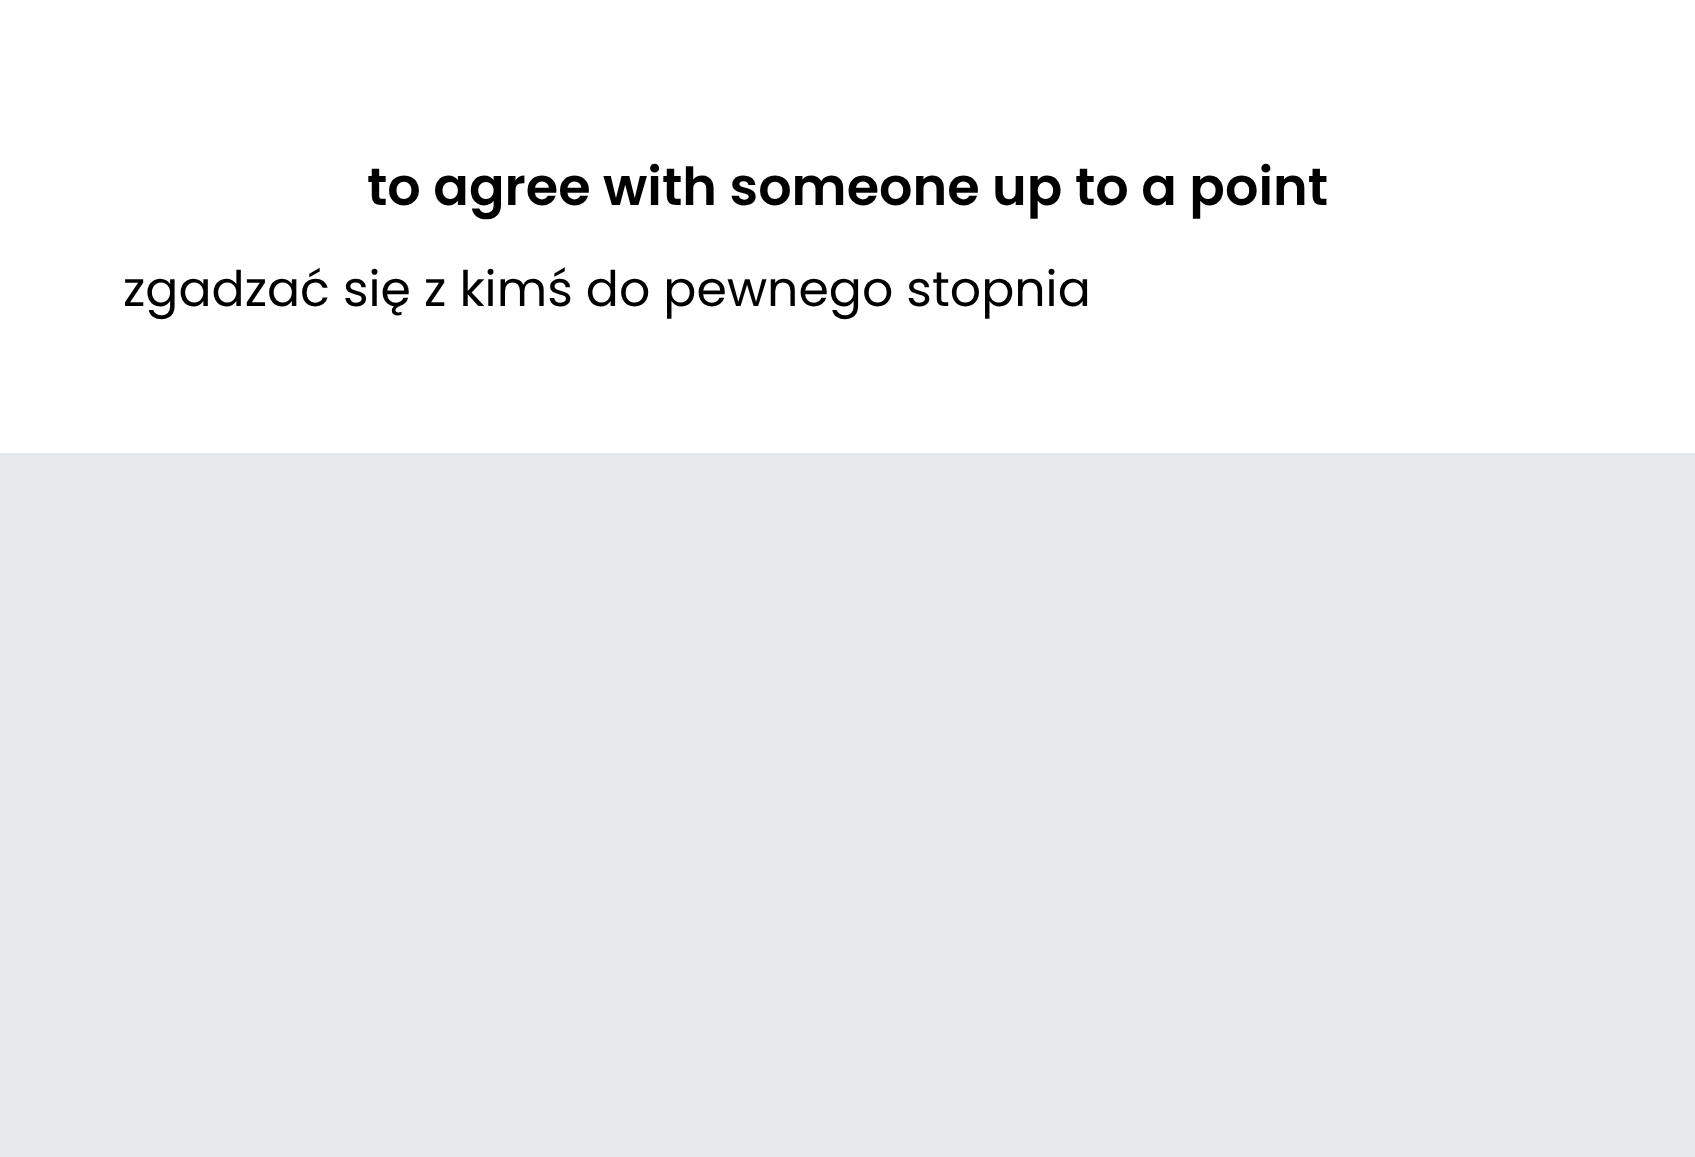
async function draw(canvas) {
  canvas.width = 1695;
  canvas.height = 1157;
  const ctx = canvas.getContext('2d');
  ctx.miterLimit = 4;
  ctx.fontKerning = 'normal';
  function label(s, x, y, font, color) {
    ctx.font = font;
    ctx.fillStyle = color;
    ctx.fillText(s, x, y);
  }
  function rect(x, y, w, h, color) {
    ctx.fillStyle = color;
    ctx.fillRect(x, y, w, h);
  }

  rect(0, 0, 1695, 1157, '#e6e9ec');
  rect(0, 0, 1695, 453, '#fff');
  label('to agree with someone up to a point', 367, 205, '600 52.5px Poppins', '#000');
  label('zgadzać się z kimś do pewnego stopnia', 123, 306, '49px Poppins', '#000');
}

draw(document.querySelector('canvas'));
